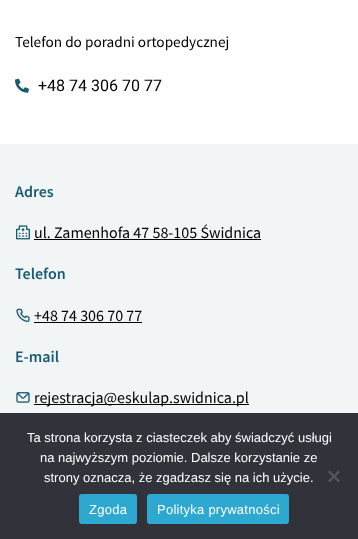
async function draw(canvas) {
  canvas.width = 358;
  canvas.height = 539;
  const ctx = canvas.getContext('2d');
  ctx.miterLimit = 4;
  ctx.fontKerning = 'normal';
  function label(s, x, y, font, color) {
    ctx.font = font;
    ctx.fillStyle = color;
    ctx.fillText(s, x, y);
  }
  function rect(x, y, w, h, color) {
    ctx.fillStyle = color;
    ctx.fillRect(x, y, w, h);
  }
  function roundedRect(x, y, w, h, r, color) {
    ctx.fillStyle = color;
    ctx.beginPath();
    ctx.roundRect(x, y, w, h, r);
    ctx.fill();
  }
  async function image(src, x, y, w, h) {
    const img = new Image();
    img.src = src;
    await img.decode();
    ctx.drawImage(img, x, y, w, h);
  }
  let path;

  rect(0, 0, 358, 539, '#fff');
  label('Telefon do poradni ortopedycznej', 15, 47, '15.25px Source Sans Pro', '#000');
  await image('assets/img1.png', 15, 78, 14, 15);
  label('+48 74 306 70 77', 38, 91, '16px Roboto', '#000');
  rect(0, 144, 358, 269, '#f2f5f6');
  label('Adres', 15, 197, '600 16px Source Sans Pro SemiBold', '#185b72');
  await image('assets/img2.png', 16, 225, 14, 15);
  label('ul. Zamenhofa 47 58-105 Świdnica', 34, 238, '16px Source Sans Pro', '#000');
  rect(34, 239, 227, 1, '#000');
  label('Telefon', 15, 279, '600 16px Source Sans Pro SemiBold', '#185b72');
  await image('assets/img3.png', 16, 308, 14, 14);
  label('+48 74 306 70 77', 34, 321, '16px Source Sans Pro', '#000');
  rect(34, 322, 108, 1, '#000');
  label('E-mail', 15, 362, '600 16px Source Sans Pro SemiBold', '#185b72');
  await image('assets/img4.png', 16, 392, 14, 11);
  rect(34, 404, 215, 1, '#000');
  label('rejestracja@eskulap.swidnica.pl', 34, 403, '16px Source Sans Pro', '#000');
  rect(0, 413, 358, 126, '#32323a');
  label('Ta strona korzysta z ciasteczek aby świadczyć usługi', 27, 442, '13px Liberation Sans', '#fff');
  label('na najwyższym poziomie. Dalsze korzystanie ze', 40, 462, '13px Liberation Sans', '#fff');
  label('strony oznacza, że zgadzasz się na ich użycie.', 44, 482, '13px Liberation Sans', '#fff');
  ctx.fillStyle = '#59595d';
  path = new Path2D('M338.5 470.5L340 472L329.5 482.5L328 481Z');
  ctx.fill(path);
  path = new Path2D('M328 472L329.5 470.5L340 481L338.5 482.5Z');
  ctx.fill(path);
  roundedRect(79, 494, 58, 30, 3, '#2da8d1');
  ctx.letterSpacing = '0.25px';
  label('Zgoda', 89, 514, '13px Liberation Sans', '#fff');
  roundedRect(147, 494, 142, 30, 3, '#2da8d1');
  label('Polityka prywatności', 157, 514, '13px Liberation Sans', '#fff');
}

draw(document.querySelector('canvas'));
